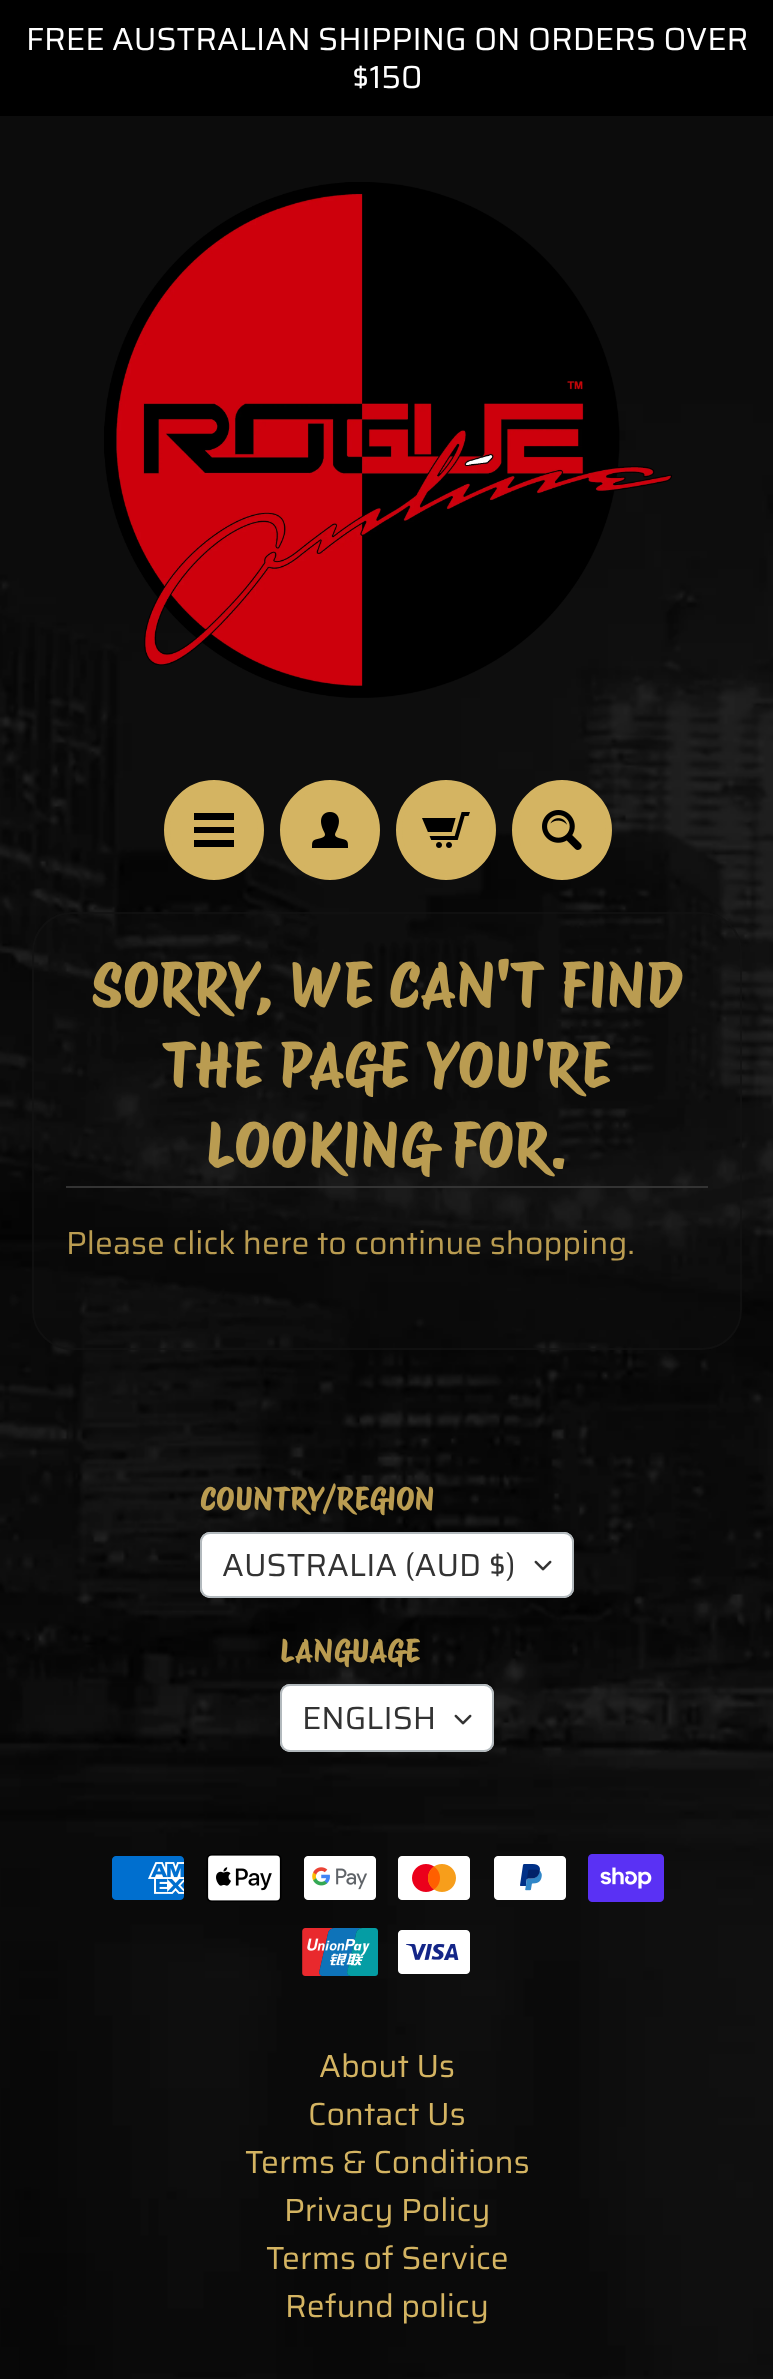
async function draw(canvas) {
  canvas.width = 773;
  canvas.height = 2379;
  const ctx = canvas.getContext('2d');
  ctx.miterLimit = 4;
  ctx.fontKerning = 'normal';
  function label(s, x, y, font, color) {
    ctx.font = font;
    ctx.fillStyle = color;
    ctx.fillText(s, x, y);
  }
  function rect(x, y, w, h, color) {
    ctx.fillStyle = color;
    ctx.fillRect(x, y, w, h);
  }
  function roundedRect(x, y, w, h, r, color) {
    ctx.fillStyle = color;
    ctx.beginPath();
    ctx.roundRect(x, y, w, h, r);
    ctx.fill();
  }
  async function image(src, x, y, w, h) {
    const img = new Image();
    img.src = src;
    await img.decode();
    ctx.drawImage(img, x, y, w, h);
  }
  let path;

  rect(0, 0, 773, 2379, '#fff');
  await image('assets/img1.png', 0, 116, 773, 2263);
  rect(0, 0, 773, 116, '#000');
  label('FREE AUSTRALIAN SHIPPING ON ORDERS OVER', 26, 50, '32px Saira', '#fff');
  label('$150', 352, 88, '32px Saira', '#fff');
  await image('assets/img2.png', 104, 182, 568, 516);
  ctx.fillStyle = '#d4b462';
  ctx.beginPath();
  ctx.arc(214, 830, 47, 0, 2 * Math.PI);
  ctx.fill();
  ctx.strokeStyle = '#d4b462';
  ctx.lineWidth = 6;
  ctx.stroke();
  ctx.fillStyle = '#000';
  path = new Path2D('M234 820H194V813H234ZM234 827H194V833H234ZM234 840H194V847H234Z');
  ctx.fill(path);
  ctx.fillStyle = '#d4b462';
  ctx.beginPath();
  ctx.arc(330, 830, 47, 0, 2 * Math.PI);
  ctx.fill();
  ctx.stroke();
  await image('assets/img3.png', 312, 812, 36, 36);
  ctx.beginPath();
  ctx.arc(446, 830, 47, 0, 2 * Math.PI);
  ctx.fill();
  ctx.stroke();
  await image('assets/img4.png', 422, 812, 48, 36);
  ctx.beginPath();
  ctx.arc(562, 830, 47, 0, 2 * Math.PI);
  ctx.fill();
  ctx.stroke();
  await image('assets/img5.png', 542, 810, 40, 40);
  roundedRect(32, 912, 710, 438, 40, '#12121240');
  ctx.beginPath();
  ctx.roundRect(33, 913, 708, 436, 39);
  ctx.strokeStyle = '#121212b3';
  ctx.lineWidth = 2;
  ctx.stroke();
  rect(66, 1186, 642, 2, '#333');
  label('SORRY, WE CAN\'T FIND', 91, 1007, '62.5px Protest Riot', '#ba9c51');
  label('THE PAGE YOU\'RE', 163, 1087, '62.5px Protest Riot', '#ba9c51');
  label('LOOKING FOR.', 206, 1167, '62.5px Protest Riot', '#ba9c51');
  label('Please click here to continue shopping.', 66, 1254, '32px Saira', '#ba9c51');
  label('COUNTRY/REGION', 200, 1510, '32px Protest Riot', '#ba9c51');
  roundedRect(200, 1532, 374, 66, 10, '#fff');
  await image('assets/img6.png', 534, 1560, 18, 11);
  ctx.beginPath();
  ctx.roundRect(201, 1533, 372, 64, 9);
  ctx.strokeStyle = '#b2b9bd';
  ctx.stroke();
  label('AUSTRALIA (AUD $)', 222, 1576, '32px Saira', '#333');
  label('LANGUAGE', 280, 1662, '32px Protest Riot', '#ba9c51');
  roundedRect(280, 1684, 214, 68, 10, '#fff');
  await image('assets/img6.png', 454, 1714, 18, 11);
  ctx.beginPath();
  ctx.roundRect(281, 1685, 212, 66, 9);
  ctx.stroke();
  label('ENGLISH', 302, 1729, '32px Saira', '#333');
  await image('assets/img7.png', 112, 1856, 72, 44);
  await image('assets/img8.png', 206, 1854, 76, 48);
  await image('assets/img9.png', 304, 1856, 72, 44);
  await image('assets/img10.png', 398, 1856, 72, 44);
  await image('assets/img11.png', 494, 1856, 72, 44);
  await image('assets/img12.png', 588, 1854, 76, 48);
  await image('assets/img13.png', 302, 1928, 76, 48);
  await image('assets/img14.png', 398, 1930, 72, 44);
  label('About Us', 319, 2077, '32px Saira', '#d4b462');
  label('Contact Us', 308, 2125, '32px Saira', '#d4b462');
  label('Terms & Conditions', 245, 2173, '32px Saira', '#d4b462');
  label('Privacy Policy', 284, 2221, '32px Saira', '#d4b462');
  label('Terms of Service', 266, 2269, '32px Saira', '#d4b462');
  label('Refund policy', 285, 2317, '32px Saira', '#d4b462');
}

draw(document.querySelector('canvas'));
